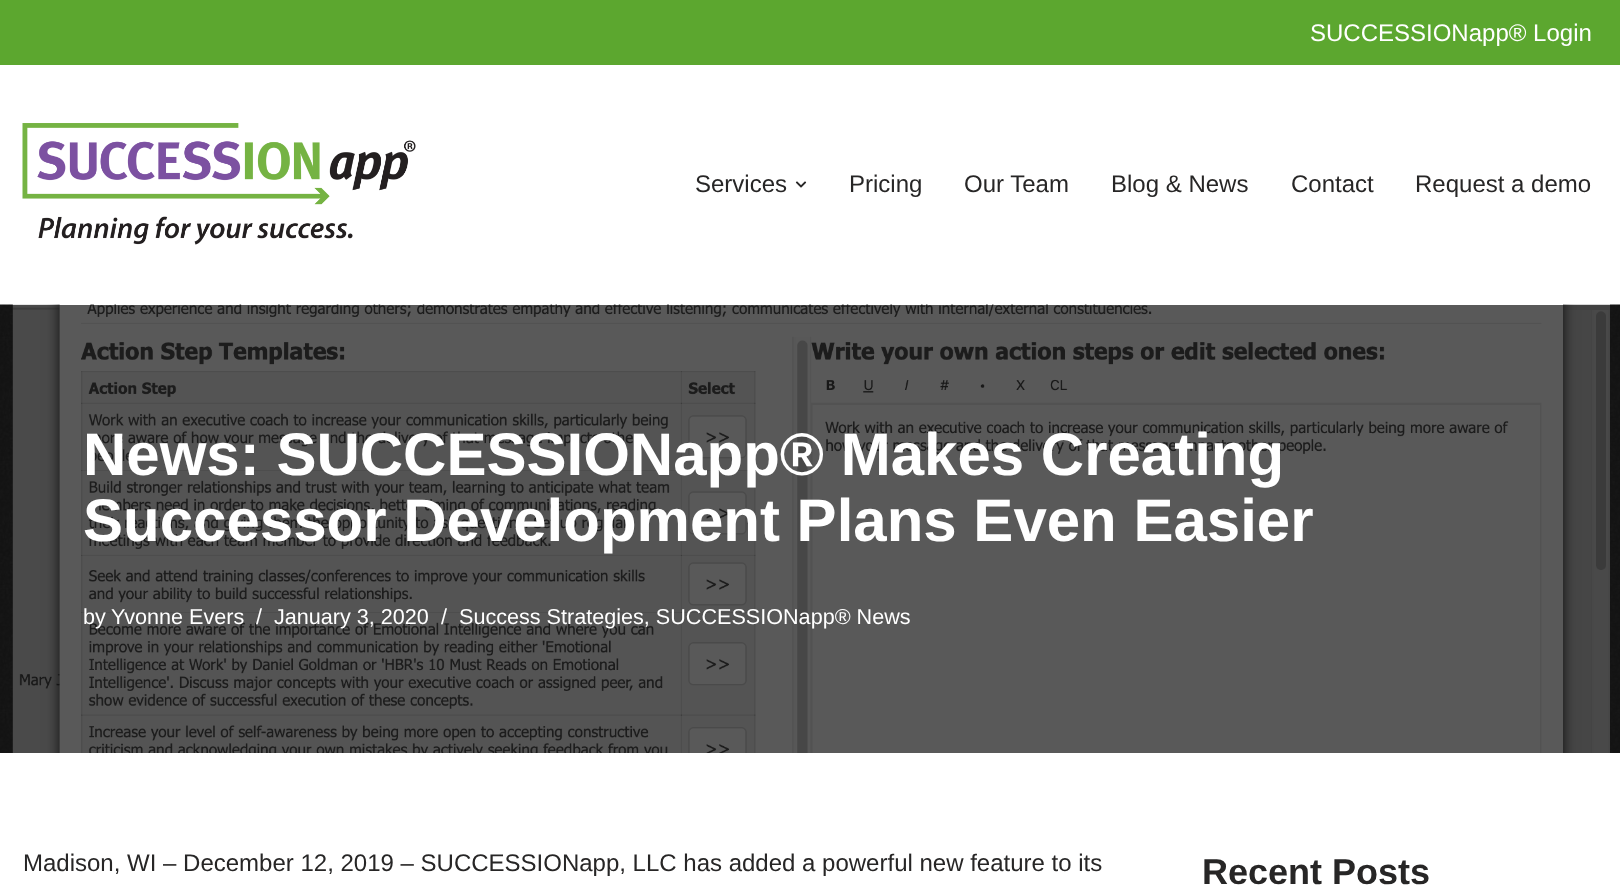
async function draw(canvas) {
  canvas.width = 1620;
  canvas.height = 889;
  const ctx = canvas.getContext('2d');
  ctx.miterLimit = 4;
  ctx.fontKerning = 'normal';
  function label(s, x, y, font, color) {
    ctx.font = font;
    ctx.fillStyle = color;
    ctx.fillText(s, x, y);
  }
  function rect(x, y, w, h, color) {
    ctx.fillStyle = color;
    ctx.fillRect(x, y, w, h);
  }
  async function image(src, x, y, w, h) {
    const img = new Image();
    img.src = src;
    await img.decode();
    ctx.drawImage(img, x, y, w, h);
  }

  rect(0, 0, 1620, 889, '#fff');
  rect(0, 0, 1620, 65, '#5ca72f');
  label('SUCCESSIONapp® Login', 1310, 41, '24px Liberation Sans', '#fff');
  await image('assets/img1.png', 22, 123, 394, 122);
  label('Services', 695, 192, '24px Liberation Sans', '#272626');
  await image('assets/img2.png', 795, 181, 12, 7);
  label('Pricing', 849, 192, '24px Liberation Sans', '#272626');
  label('Our Team', 964, 192, '24px Liberation Sans', '#272626');
  label('Blog & News', 1111, 192, '24px Liberation Sans', '#272626');
  label('Contact', 1291, 192, '24px Liberation Sans', '#272626');
  label('Request a demo', 1415, 192, '24px Liberation Sans', '#272626');
  await image('assets/img3.png', 0, 304, 1620, 449);
  label('News: SUCCESSIONapp® Makes Creating', 83, 475, 'bold 60px Liberation Sans', '#fff');
  label('Successor Development Plans Even Easier', 83, 541, 'bold 60px Liberation Sans', '#fff');
  label('by', 83, 624, '21.6px Liberation Sans', '#fff');
  label('Yvonne Evers', 111, 624, '21.6px Liberation Sans', '#fff');
  label('/', 256, 624, '21.6px Liberation Sans', '#fff');
  label('January 3, 2020', 274, 624, '21.6px Liberation Sans', '#fff');
  label('/', 441, 624, '21.6px Liberation Sans', '#fff');
  label('Success Strategies, SUCCESSIONapp® News', 459, 624, '21.6px Liberation Sans', '#fff');
  label('Madison, WI – December 12, 2019 – SUCCESSIONapp, LLC has added a powerful new feature to its', 23, 871, '24px Liberation Sans', '#272626');
  label('Recent Posts', 1202, 884, 'bold 36px Liberation Sans', '#272626');
}

draw(document.querySelector('canvas'));
